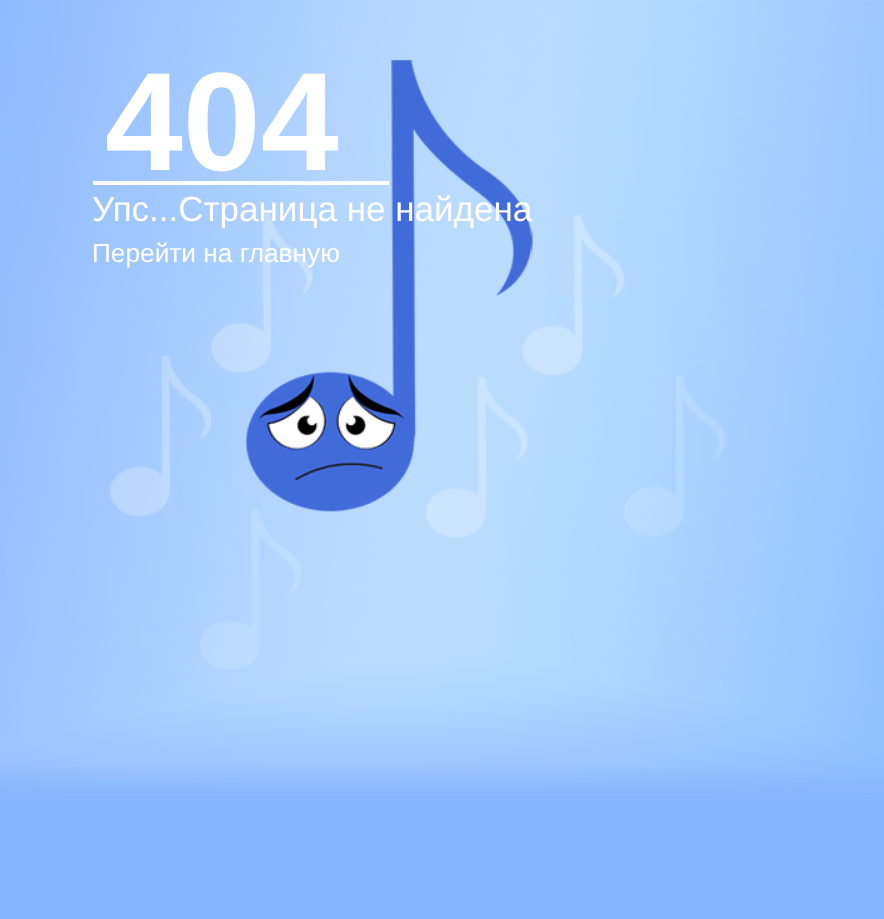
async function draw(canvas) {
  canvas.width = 884;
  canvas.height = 919;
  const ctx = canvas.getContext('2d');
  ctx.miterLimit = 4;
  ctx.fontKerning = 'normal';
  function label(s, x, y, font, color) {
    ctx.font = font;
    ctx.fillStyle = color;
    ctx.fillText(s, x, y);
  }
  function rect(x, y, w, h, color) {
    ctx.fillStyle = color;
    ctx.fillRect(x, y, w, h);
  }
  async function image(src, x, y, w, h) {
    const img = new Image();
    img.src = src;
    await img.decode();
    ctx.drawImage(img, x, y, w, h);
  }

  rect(0, 0, 884, 919, '#87b4ff');
  await image('assets/img1.png', 0, 0, 884, 800);
  rect(93, 181, 296, 4, '#fff');
  label('404', 105, 170, 'bold 140px Liberation Sans', '#fff');
  label('Упс...Страница не найдена', 92, 221, '35px Liberation Sans', '#fff');
  label('Перейти на главную', 92, 262, '26.25px Liberation Sans', '#fff');
}

draw(document.querySelector('canvas'));
